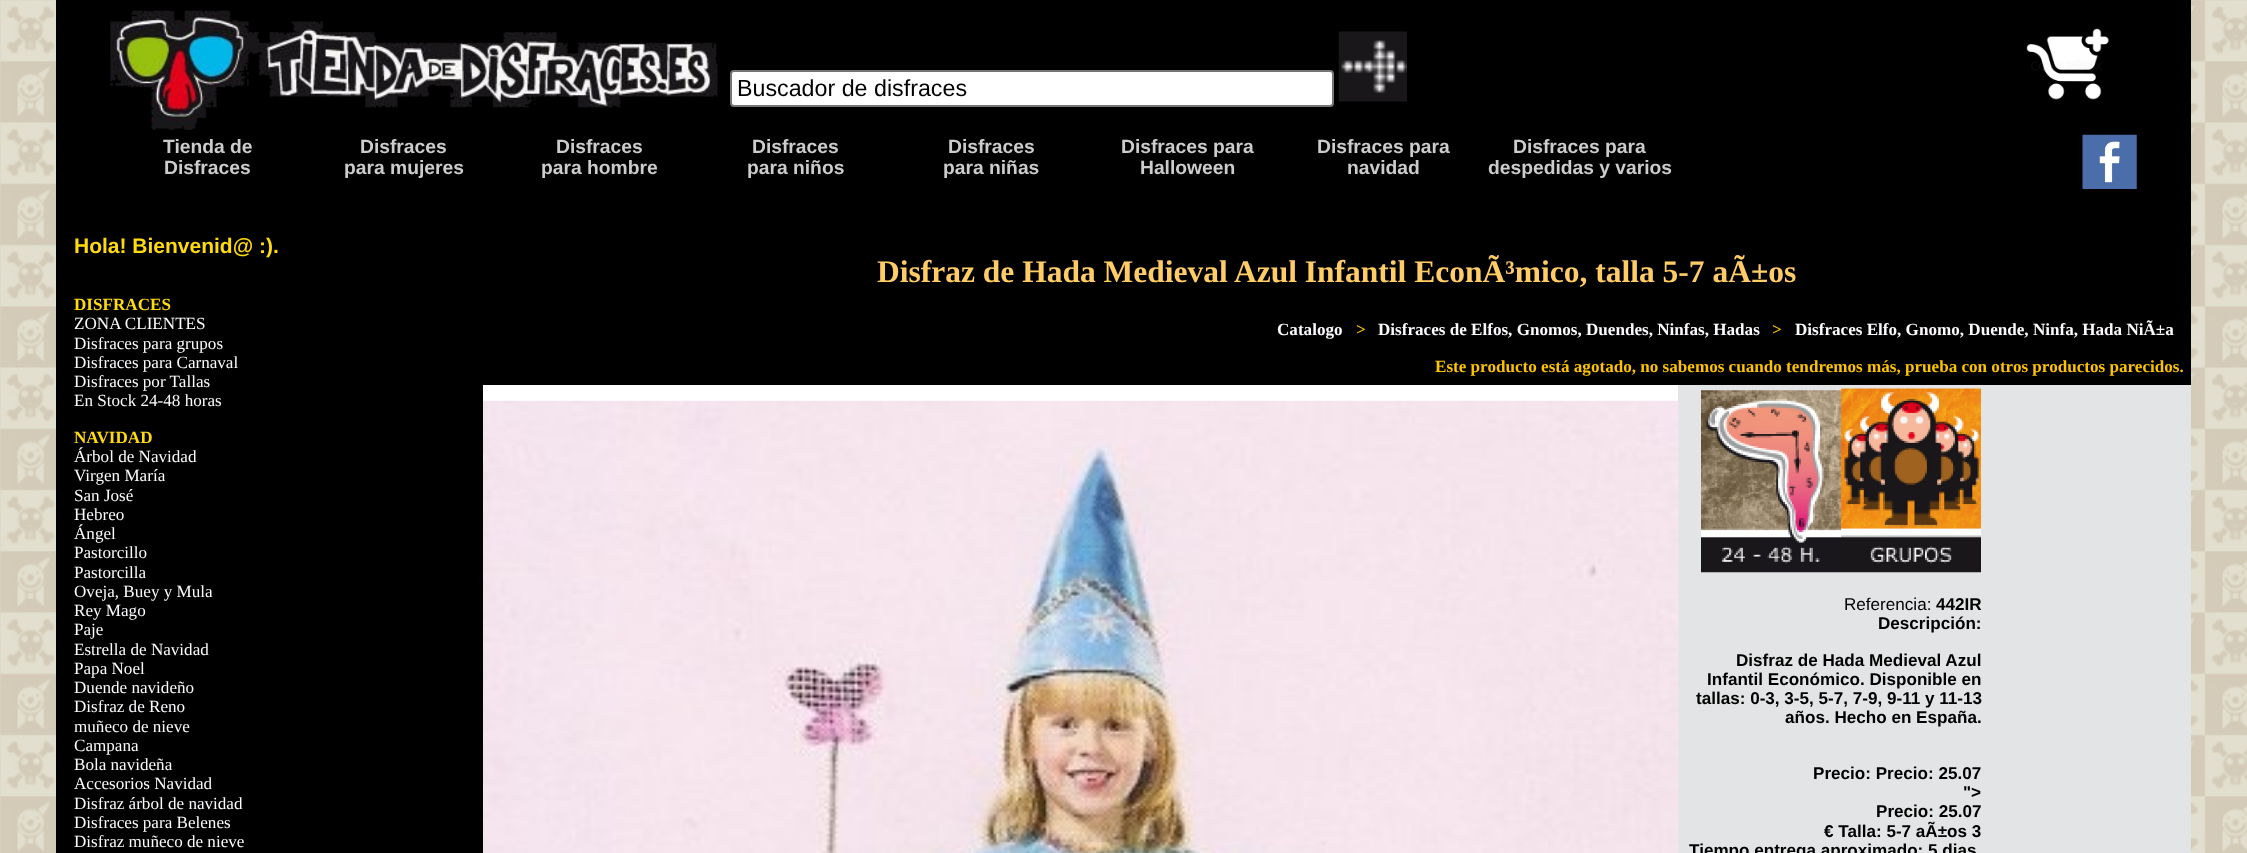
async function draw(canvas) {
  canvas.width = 2247;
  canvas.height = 853;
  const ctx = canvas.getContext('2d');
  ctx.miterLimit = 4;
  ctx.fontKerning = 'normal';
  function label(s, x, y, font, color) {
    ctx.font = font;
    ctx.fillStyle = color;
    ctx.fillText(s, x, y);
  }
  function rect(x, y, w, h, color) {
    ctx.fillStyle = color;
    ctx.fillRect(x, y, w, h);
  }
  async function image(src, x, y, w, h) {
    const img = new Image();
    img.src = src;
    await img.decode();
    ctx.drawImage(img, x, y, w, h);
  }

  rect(0, 0, 2247, 853, '#fff');
  await image('assets/img1.png', 0, 0, 2247, 853);
  rect(56, 0, 2135, 235, '#000');
  await image('assets/img2.png', 110, 10, 608, 120);
  ctx.fillStyle = '#fff';
  ctx.beginPath();
  ctx.roundRect(731, 71, 602, 35, 3);
  ctx.fill();
  ctx.strokeStyle = '#767676';
  ctx.lineWidth = 2;
  ctx.stroke();
  label('Buscador de disfraces', 737, 96, '23.25px Liberation Sans', '#000');
  await image('assets/img3.png', 1338, 31, 69, 71);
  await image('assets/img4.png', 2026, 28, 83, 72);
  label('Tienda de', 163, 153, 'bold 19.25px Liberation Sans', '#ccc');
  label('Disfraces', 164, 174, 'bold 19.25px Liberation Sans', '#ccc');
  label('Disfraces', 360, 153, 'bold 19.25px Liberation Sans', '#ccc');
  label('para mujeres', 344, 174, 'bold 19.25px Liberation Sans', '#ccc');
  label('Disfraces', 556, 153, 'bold 19.25px Liberation Sans', '#ccc');
  label('para hombre', 541, 174, 'bold 19.25px Liberation Sans', '#ccc');
  label('Disfraces', 752, 153, 'bold 19.25px Liberation Sans', '#ccc');
  label('para niños', 747, 174, 'bold 19.25px Liberation Sans', '#ccc');
  label('Disfraces', 948, 153, 'bold 19.25px Liberation Sans', '#ccc');
  label('para niñas', 943, 174, 'bold 19.25px Liberation Sans', '#ccc');
  label('Disfraces para', 1121, 153, 'bold 19.25px Liberation Sans', '#ccc');
  label('Halloween', 1140, 174, 'bold 19.25px Liberation Sans', '#ccc');
  label('Disfraces para', 1317, 153, 'bold 19.25px Liberation Sans', '#ccc');
  label('navidad', 1347, 174, 'bold 19.25px Liberation Sans', '#ccc');
  label('Disfraces para', 1513, 153, 'bold 19.25px Liberation Sans', '#ccc');
  label('despedidas y varios', 1488, 174, 'bold 19.25px Liberation Sans', '#ccc');
  await image('assets/img5.png', 2082, 134, 55, 55);
  rect(56, 235, 427, 618, '#000');
  label('Hola! Bienvenid@ :).', 74, 253, 'bold 21px Liberation Sans', '#ffda0e');
  label('DISFRACES', 74, 310, 'bold 17.1px Liberation Serif', '#ffda0e');
  label('ZONA CLIENTES', 74, 329, '17.1px Liberation Serif', '#fcfafd');
  label('Disfraces para grupos', 74, 349, '17.1px Liberation Serif', '#fcfafd');
  label('Disfraces para Carnaval', 74, 368, '17.1px Liberation Serif', '#fcfafd');
  label('Disfraces por Tallas', 74, 387, '17.1px Liberation Serif', '#fcfafd');
  label('En Stock 24-48 horas', 74, 406, '17.1px Liberation Serif', '#fcfafd');
  label('NAVIDAD', 74, 443, 'bold 17.1px Liberation Serif', '#ffda0e');
  label('Árbol de Navidad', 74, 462, '17.1px Liberation Serif', '#fcfafd');
  label('Virgen María', 74, 481, '17.1px Liberation Serif', '#fcfafd');
  label('San José', 74, 501, '17.1px Liberation Serif', '#fcfafd');
  label('Hebreo', 74, 520, '17.1px Liberation Serif', '#fcfafd');
  label('Ángel', 74, 539, '17.1px Liberation Serif', '#fcfafd');
  label('Pastorcillo', 74, 558, '17.1px Liberation Serif', '#fcfafd');
  label('Pastorcilla', 74, 578, '17.1px Liberation Serif', '#fcfafd');
  label('Oveja, Buey y Mula', 74, 597, '17.1px Liberation Serif', '#fcfafd');
  label('Rey Mago', 74, 616, '17.1px Liberation Serif', '#fcfafd');
  label('Paje', 74, 635, '17.1px Liberation Serif', '#fcfafd');
  label('Estrella de Navidad', 74, 655, '17.1px Liberation Serif', '#fcfafd');
  label('Papa Noel', 74, 674, '17.1px Liberation Serif', '#fcfafd');
  label('Duende navideño', 74, 693, '17.1px Liberation Serif', '#fcfafd');
  label('Disfraz de Reno', 74, 712, '17.1px Liberation Serif', '#fcfafd');
  label('muñeco de nieve', 74, 732, '17.1px Liberation Serif', '#fcfafd');
  label('Campana', 74, 751, '17.1px Liberation Serif', '#fcfafd');
  label('Bola navideña', 74, 770, '17.1px Liberation Serif', '#fcfafd');
  label('Accesorios Navidad', 74, 789, '17.1px Liberation Serif', '#fcfafd');
  label('Disfraz árbol de navidad', 74, 809, '17.1px Liberation Serif', '#fcfafd');
  label('Disfraces para Belenes', 74, 828, '17.1px Liberation Serif', '#fcfafd');
  label('Disfraz muñeco de nieve', 74, 847, '17.1px Liberation Serif', '#fcfafd');
  rect(483, 385, 1195, 16, '#fff');
  rect(483, 235, 1708, 150, '#000');
  label('Disfraz de Hada Medieval Azul Infantil EconÃ³mico, talla 5-7 aÃ±os', 877, 282, 'bold 31.5px Liberation Serif', '#fc6');
  label('Catalogo', 1277, 335, 'bold 17.1px Liberation Serif', '#fcfafd');
  label('>', 1356, 335, 'bold 17.1px Liberation Serif', '#fdc300');
  label('Disfraces de Elfos, Gnomos, Duendes, Ninfas, Hadas', 1378, 335, 'bold 17.1px Liberation Serif', '#fcfafd');
  label('>', 1772, 335, 'bold 17.1px Liberation Serif', '#fdc300');
  label('Disfraces Elfo, Gnomo, Duende, Ninfa, Hada NiÃ±a', 1795, 335, 'bold 17.1px Liberation Serif', '#fcfafd');
  label('Este producto está agotado, no sabemos cuando tendremos más, prueba con otros productos parecidos.', 1435, 372, 'bold 17.1px Liberation Serif', '#fdc300');
  rect(1678, 385, 513, 468, '#e3e4e5');
  await image('assets/img6.png', 483, 400, 1196, 453);
  await image('assets/img7.png', 1701, 390, 140, 183);
  await image('assets/img8.png', 1841, 388, 140, 185);
  label('Referencia:', 1844, 610, '17.1px Liberation Sans', '#000');
  label('442IR', 1936, 610, 'bold 17.1px Liberation Sans', '#000');
  label('Descripción:', 1878, 629, 'bold 17.1px Liberation Sans', '#000');
  label('Disfraz de Hada Medieval Azul', 1736, 666, 'bold 17.1px Liberation Sans', '#000');
  label('Infantil Económico. Disponible en', 1707, 685, 'bold 17.1px Liberation Sans', '#000');
  label('tallas: 0-3, 3-5, 5-7, 7-9, 9-11 y 11-13', 1696, 704, 'bold 17.1px Liberation Sans', '#000');
  label('años. Hecho en España.', 1785, 723, 'bold 17.1px Liberation Sans', '#000');
  label('Precio: Precio: 25.07', 1813, 779, 'bold 17.1px Liberation Sans', '#000');
  label('">', 1963, 798, 'bold 17.1px Liberation Sans', '#000');
  label('Precio: 25.07', 1876, 817, 'bold 17.1px Liberation Sans', '#000');
  label('€ Talla: 5-7 aÃ±os 3', 1824, 837, 'bold 17.1px Liberation Sans', '#000');
  label('Tiempo entrega aproximado: 5 dias', 1689, 856, 'bold 17.1px Liberation Sans', '#000');
}

draw(document.querySelector('canvas'));
